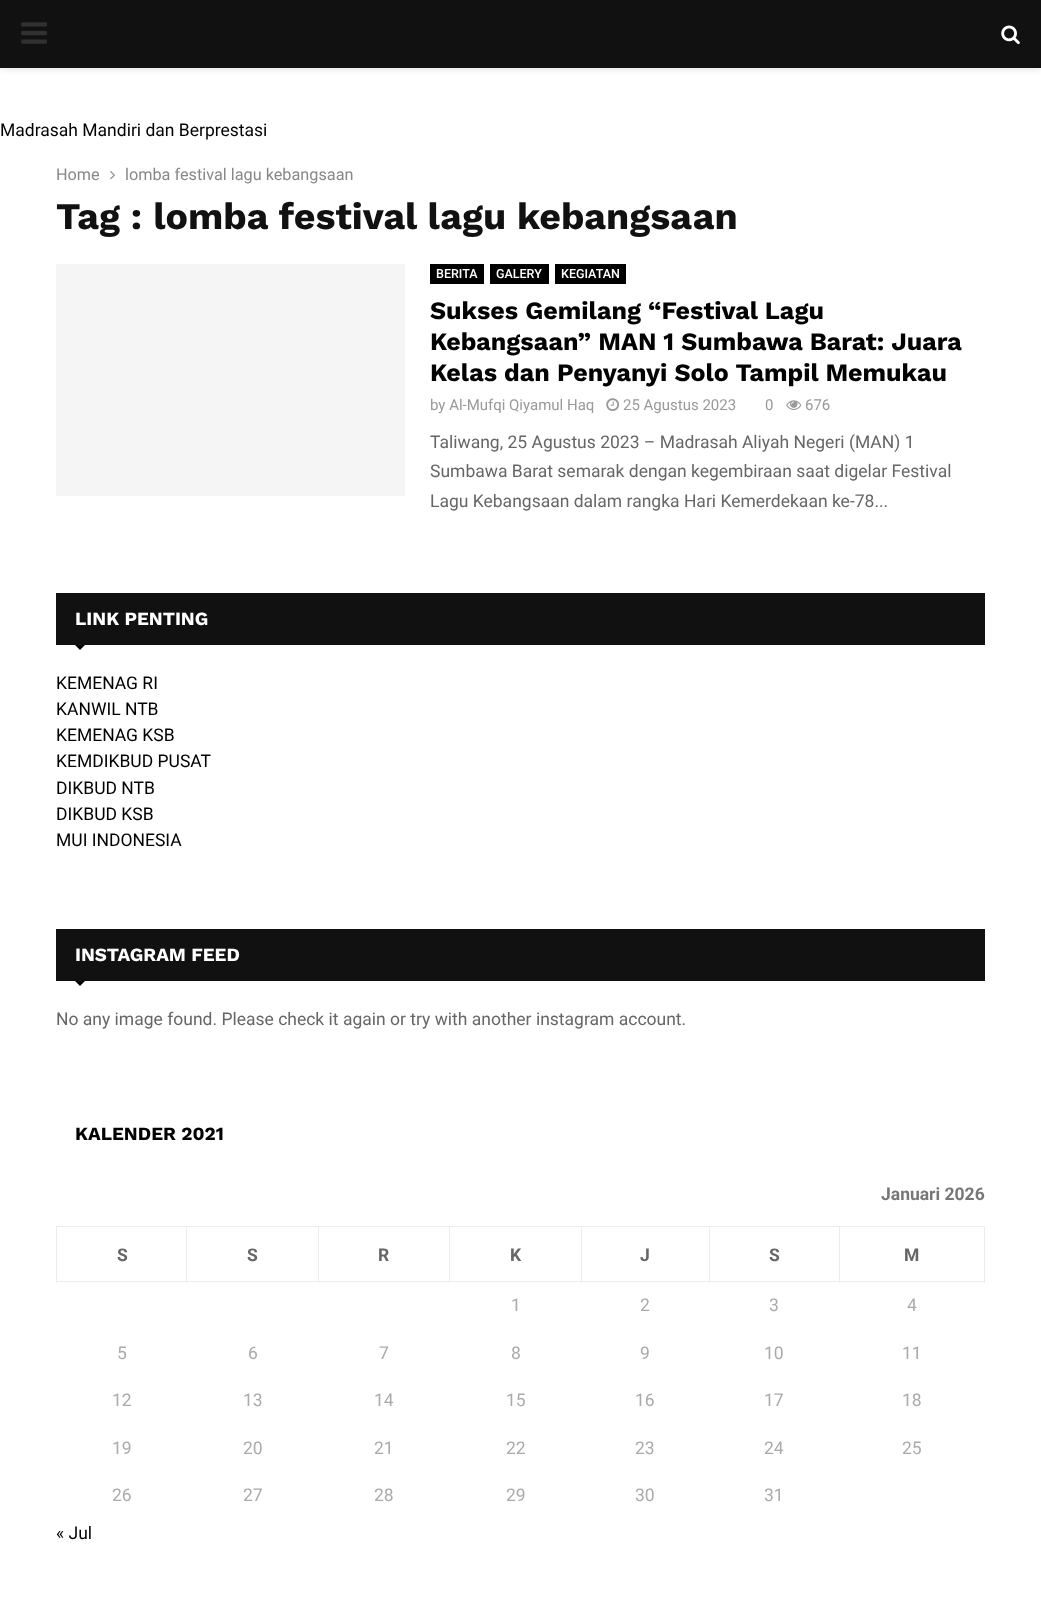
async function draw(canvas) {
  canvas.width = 1041;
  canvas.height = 1607;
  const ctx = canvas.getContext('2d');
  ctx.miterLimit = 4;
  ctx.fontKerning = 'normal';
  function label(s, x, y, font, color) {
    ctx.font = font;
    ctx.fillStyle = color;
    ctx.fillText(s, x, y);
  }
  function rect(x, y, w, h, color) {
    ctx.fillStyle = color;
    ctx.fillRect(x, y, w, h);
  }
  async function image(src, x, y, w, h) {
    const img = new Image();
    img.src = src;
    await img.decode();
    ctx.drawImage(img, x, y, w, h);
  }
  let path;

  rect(0, 0, 1041, 1607, '#fff');
  ctx.fillStyle = '#bebebe75';
  ctx.filter = 'blur(3px)';
  ctx.beginPath();
  ctx.rect(0, 1, 1041, 68);
  ctx.fill();
  ctx.filter = 'none';
  rect(0, 0, 1041, 68, '#111');
  await image('assets/img1.png', 21, 22, 26, 22);
  await image('assets/img2.png', 1001, 25, 19, 20);
  label('Madrasah Mandiri dan Berprestasi', 0, 136, '17.5px Roboto', '#000');
  label('Home', 56, 180, '16.25px Roboto', '#888');
  await image('assets/img3.png', 110, 171, 5, 9);
  label('lomba festival lagu kebangsaan', 125, 180, '16.25px Roboto', '#888');
  label('Tag : lomba festival lagu kebangsaan', 56, 229, 'bold 37.5px Work Sans', '#111');
  rect(56, 264, 349, 232, '#f5f5f5');
  rect(430, 264, 54, 20, '#000');
  label('BERITA', 436, 278, '500 12.5px Roboto', '#fff');
  rect(490, 264, 59, 20, '#000');
  label('GALERY', 496, 278, '500 12.5px Roboto', '#fff');
  rect(555, 264, 71, 20, '#000');
  label('KEGIATAN', 561, 278, '500 12.5px Roboto', '#fff');
  label('Sukses Gemilang “Festival Lagu', 430, 319, 'bold 25px Work Sans', '#000');
  label('Kebangsaan” MAN 1 Sumbawa Barat: Juara', 430, 350, 'bold 25px Work Sans', '#000');
  label('Kelas dan Penyanyi Solo Tampil Memukau', 430, 381, 'bold 25px Work Sans', '#000');
  label('by Al-Mufqi Qiyamul Haq', 430, 410, '15px Roboto', '#999');
  await image('assets/img4.png', 606, 398, 14, 14);
  label('25 Agustus 2023', 623, 410, '15px Roboto', '#999');
  label('0', 765, 410, '15px Roboto', '#999');
  await image('assets/img5.png', 786, 400, 16, 10);
  label('676', 805, 410, '15px Roboto', '#999');
  label('Taliwang, 25 Agustus 2023 – Madrasah Aliyah Negeri (MAN) 1', 430, 448, '17.5px Roboto', '#666');
  label('Sumbawa Barat semarak dengan kegembiraan saat digelar Festival', 430, 477, '17.5px Roboto', '#666');
  label('Lagu Kebangsaan dalam rangka Hari Kemerdekaan ke-78...', 430, 507, '17.5px Roboto', '#666');
  rect(56, 593, 929, 52, '#111');
  label('LINK PENTING', 75, 625, 'bold 18.75px Work Sans', '#fff');
  ctx.fillStyle = '#000';
  path = new Path2D('M75 645H85L80 650Z');
  ctx.fill(path);
  label('KEMENAG RI', 56, 689, '17.5px Roboto', '#000');
  label('KANWIL NTB', 56, 715, '17.5px Roboto', '#000');
  label('KEMENAG KSB', 56, 741, '17.5px Roboto', '#000');
  label('KEMDIKBUD PUSAT', 56, 767, '17.5px Roboto', '#000');
  label('DIKBUD NTB', 56, 794, '17.5px Roboto', '#000');
  label('DIKBUD KSB', 56, 820, '17.5px Roboto', '#000');
  label('MUI INDONESIA', 56, 846, '17.5px Roboto', '#000');
  rect(56, 929, 929, 52, '#111');
  label('INSTAGRAM FEED', 75, 961, 'bold 18.75px Work Sans', '#fff');
  ctx.fillStyle = '#000';
  path = new Path2D('M75 981H85L80 986Z');
  ctx.fill(path);
  label('No any image found. Please check it again or try with another instagram account.', 56, 1025, '17.5px Roboto', '#666');
  label('KALENDER 2021', 75, 1140, 'bold 18.75px Work Sans', '#000');
  label('Januari 2026', 881, 1200, 'bold 17.5px Roboto', '#777');
  rect(839, 1226, 146, 1, '#ececec');
  rect(984, 1226, 1, 57, '#ececec');
  rect(839, 1281, 146, 1, '#ececec');
  rect(839, 1226, 1, 57, '#ececec');
  rect(709, 1226, 131, 1, '#ececec');
  rect(709, 1281, 131, 1, '#ececec');
  rect(709, 1226, 1, 57, '#ececec');
  rect(581, 1226, 129, 1, '#ececec');
  rect(581, 1281, 129, 1, '#ececec');
  rect(581, 1226, 1, 57, '#ececec');
  rect(449, 1226, 134, 1, '#ececec');
  rect(449, 1281, 134, 1, '#ececec');
  rect(449, 1226, 1, 57, '#ececec');
  rect(318, 1226, 132, 1, '#ececec');
  rect(318, 1281, 132, 1, '#ececec');
  rect(318, 1226, 1, 57, '#ececec');
  rect(186, 1226, 133, 1, '#ececec');
  rect(186, 1281, 133, 1, '#ececec');
  rect(186, 1226, 1, 57, '#ececec');
  rect(56, 1226, 132, 1, '#ececec');
  rect(56, 1281, 132, 1, '#ececec');
  rect(56, 1226, 1, 57, '#ececec');
  label('S', 117, 1261, 'bold 17.5px Roboto', '#666');
  label('S', 247, 1261, 'bold 17.5px Roboto', '#666');
  label('R', 378, 1261, 'bold 17.5px Roboto', '#666');
  label('K', 510, 1261, 'bold 17.5px Roboto', '#666');
  label('J', 640, 1261, 'bold 17.5px Roboto', '#666');
  label('S', 769, 1261, 'bold 17.5px Roboto', '#666');
  label('M', 904, 1261, 'bold 17.5px Roboto', '#666');
  label('1', 511, 1311, '17.5px Roboto', '#aaa');
  label('2', 640, 1311, '17.5px Roboto', '#aaa');
  label('3', 769, 1311, '17.5px Roboto', '#aaa');
  label('4', 907, 1311, '17.5px Roboto', '#aaa');
  label('5', 117, 1359, '17.5px Roboto', '#aaa');
  label('6', 248, 1359, '17.5px Roboto', '#aaa');
  label('7', 379, 1359, '17.5px Roboto', '#aaa');
  label('8', 511, 1359, '17.5px Roboto', '#aaa');
  label('9', 640, 1359, '17.5px Roboto', '#aaa');
  label('10', 764, 1359, '17.5px Roboto', '#aaa');
  label('11', 902, 1359, '17.5px Roboto', '#aaa');
  label('12', 112, 1406, '17.5px Roboto', '#aaa');
  label('13', 243, 1406, '17.5px Roboto', '#aaa');
  label('14', 374, 1406, '17.5px Roboto', '#aaa');
  label('15', 506, 1406, '17.5px Roboto', '#aaa');
  label('16', 635, 1406, '17.5px Roboto', '#aaa');
  label('17', 764, 1406, '17.5px Roboto', '#aaa');
  label('18', 902, 1406, '17.5px Roboto', '#aaa');
  label('19', 112, 1454, '17.5px Roboto', '#aaa');
  label('20', 243, 1454, '17.5px Roboto', '#aaa');
  label('21', 374, 1454, '17.5px Roboto', '#aaa');
  label('22', 506, 1454, '17.5px Roboto', '#aaa');
  label('23', 635, 1454, '17.5px Roboto', '#aaa');
  label('24', 764, 1454, '17.5px Roboto', '#aaa');
  label('25', 902, 1454, '17.5px Roboto', '#aaa');
  label('26', 112, 1501, '17.5px Roboto', '#aaa');
  label('27', 243, 1501, '17.5px Roboto', '#aaa');
  label('28', 374, 1501, '17.5px Roboto', '#aaa');
  label('29', 506, 1501, '17.5px Roboto', '#aaa');
  label('30', 635, 1501, '17.5px Roboto', '#aaa');
  label('31', 764, 1501, '17.5px Roboto', '#aaa');
  label('« Jul', 56, 1539, '17.5px Roboto', '#000');
}

draw(document.querySelector('canvas'));
